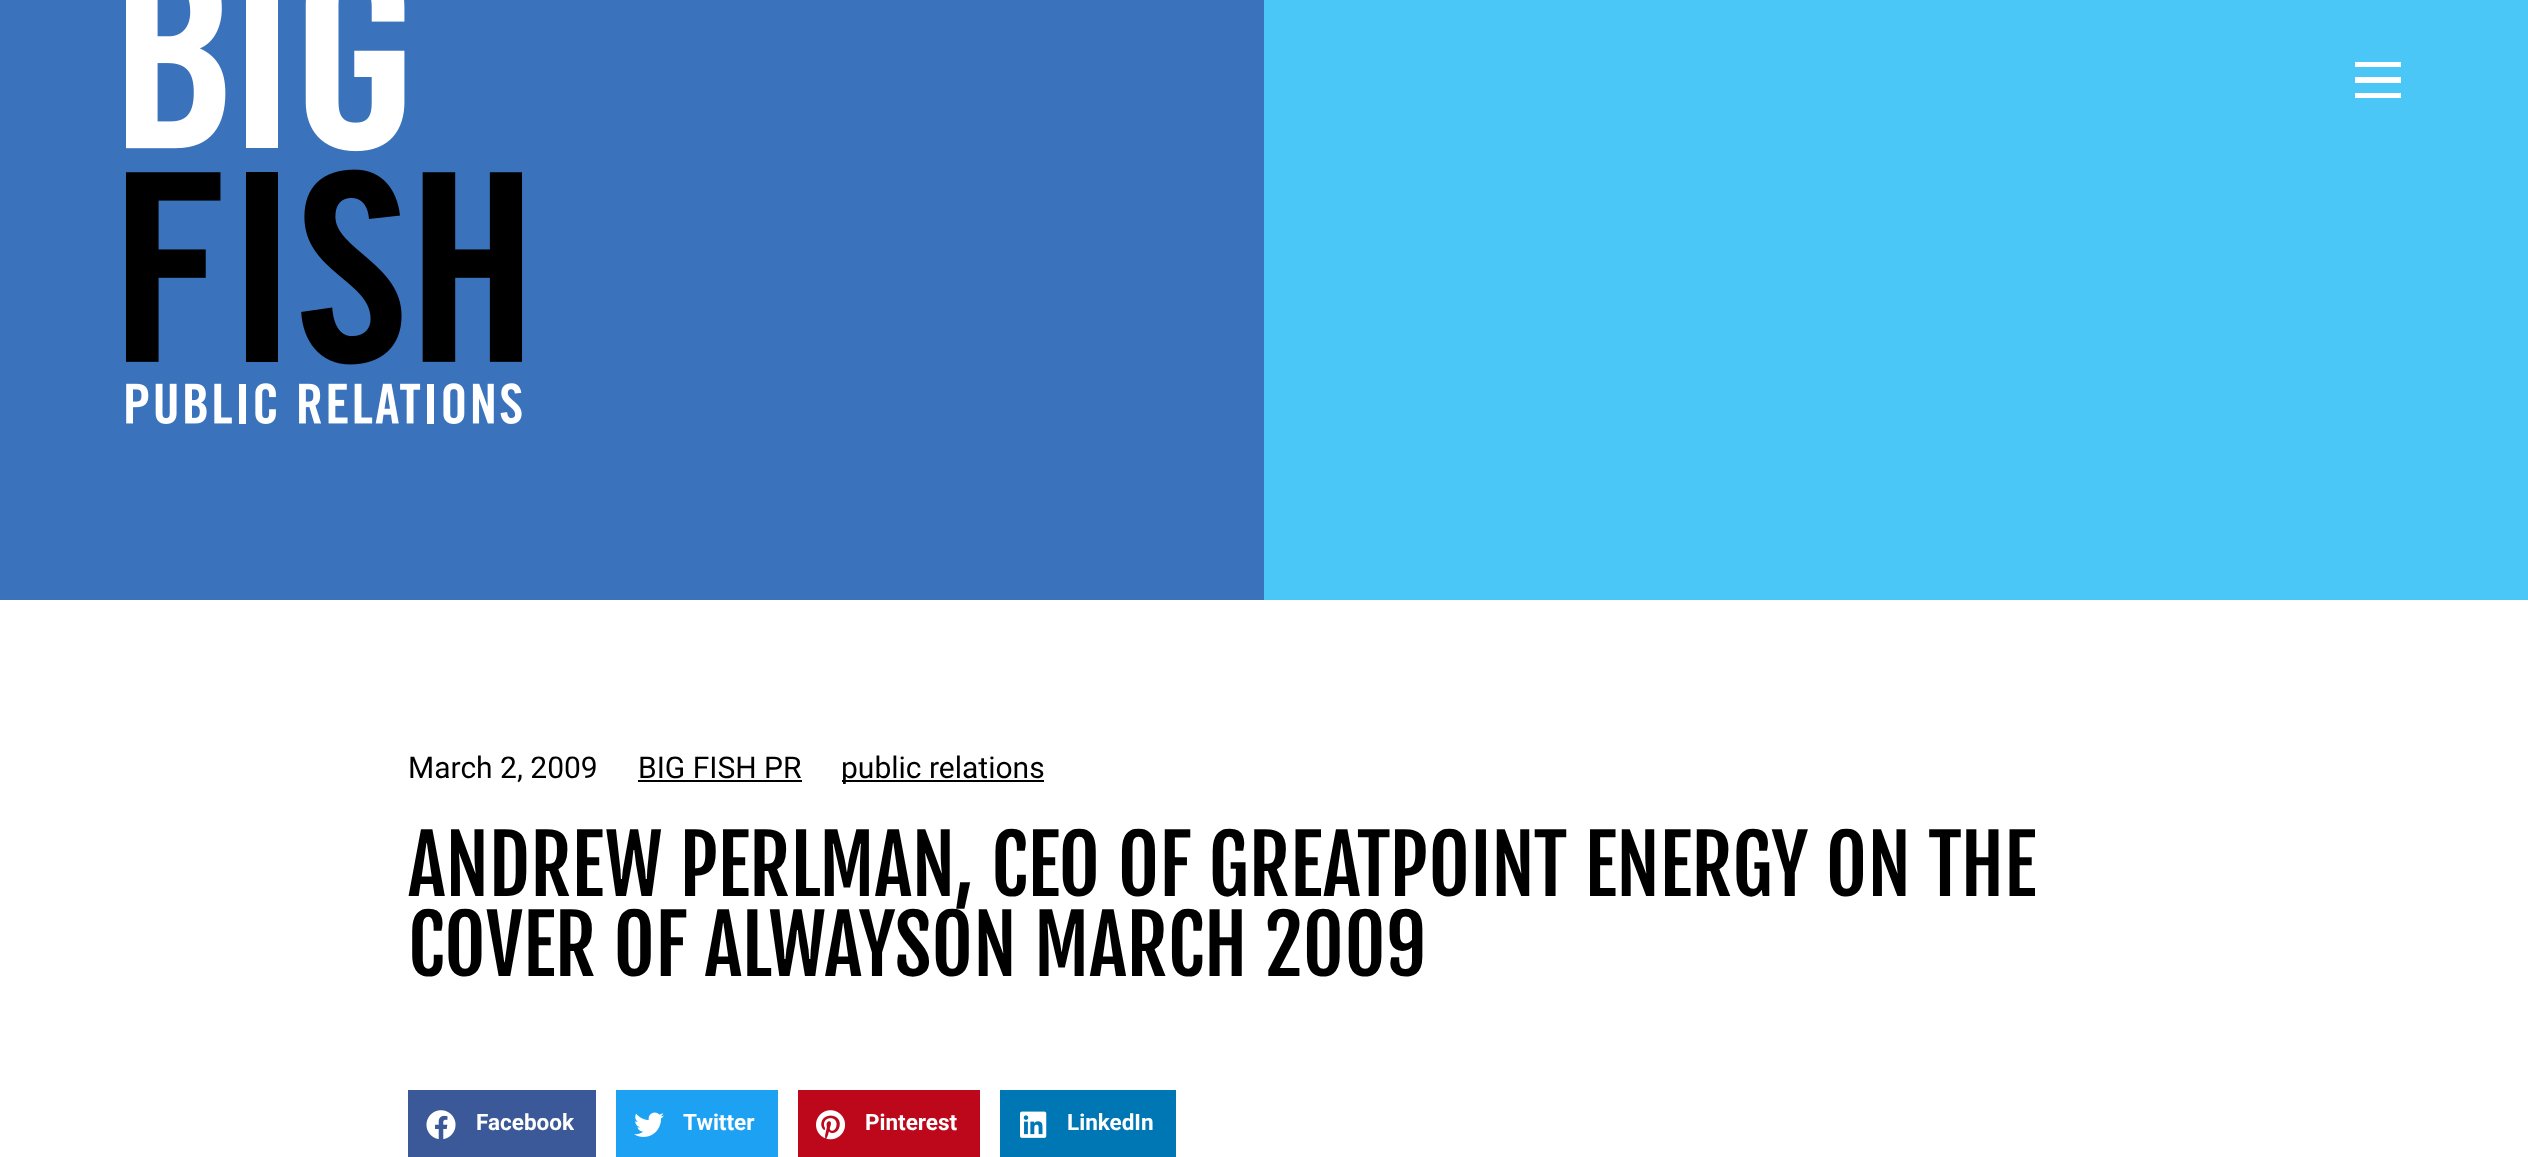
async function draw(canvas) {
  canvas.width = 2528;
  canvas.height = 1157;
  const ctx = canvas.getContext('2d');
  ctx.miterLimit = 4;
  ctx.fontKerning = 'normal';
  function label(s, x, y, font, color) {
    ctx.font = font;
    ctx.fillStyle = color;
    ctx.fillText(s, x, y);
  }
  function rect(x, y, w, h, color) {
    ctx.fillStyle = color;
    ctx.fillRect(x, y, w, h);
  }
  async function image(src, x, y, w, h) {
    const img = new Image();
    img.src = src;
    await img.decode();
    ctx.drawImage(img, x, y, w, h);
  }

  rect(0, 0, 2528, 1157, '#fff');
  rect(0, 0, 1264, 600, '#3a73bc');
  await image('assets/img1.png', 126, 0, 396, 424);
  rect(1264, 0, 1264, 600, '#4bc7f7');
  rect(2355, 62, 46, 5, '#fff');
  rect(2355, 77, 46, 6, '#fff');
  rect(2355, 93, 46, 5, '#fff');
  label('March 2, 2009', 408, 778, '30px Roboto', '#000');
  label('BIG FISH PR', 638, 778, '30px Roboto', '#000');
  rect(638, 780, 164, 2, '#000');
  rect(842, 780, 202, 2, '#000');
  label('public relations', 841, 778, '30px Roboto', '#000');
  label('ANDREW PERLMAN, CEO OF GREATPOINT ENERGY ON THE', 408, 896, '80px Fjalla One', '#000');
  label('COVER OF ALWAYSON MARCH 2009', 408, 976, '80px Fjalla One', '#000');
  rect(408, 1090, 188, 67, '#3b5998');
  await image('assets/img2.png', 426, 1110, 30, 30);
  label('Facebook', 476, 1130, 'bold 22.5px Roboto', '#fff');
  rect(616, 1090, 162, 67, '#1da1f2');
  await image('assets/img3.png', 634, 1112, 30, 25);
  label('Twitter', 683, 1130, 'bold 22.5px Roboto', '#fff');
  rect(798, 1090, 182, 67, '#bd081c');
  await image('assets/img4.png', 816, 1110, 30, 30);
  label('Pinterest', 865, 1130, 'bold 22.5px Roboto', '#fff');
  rect(1000, 1090, 176, 67, '#0077b5');
  await image('assets/img5.png', 1020, 1111, 27, 27);
  label('LinkedIn', 1067, 1130, 'bold 22.5px Roboto', '#fff');
}

draw(document.querySelector('canvas'));
